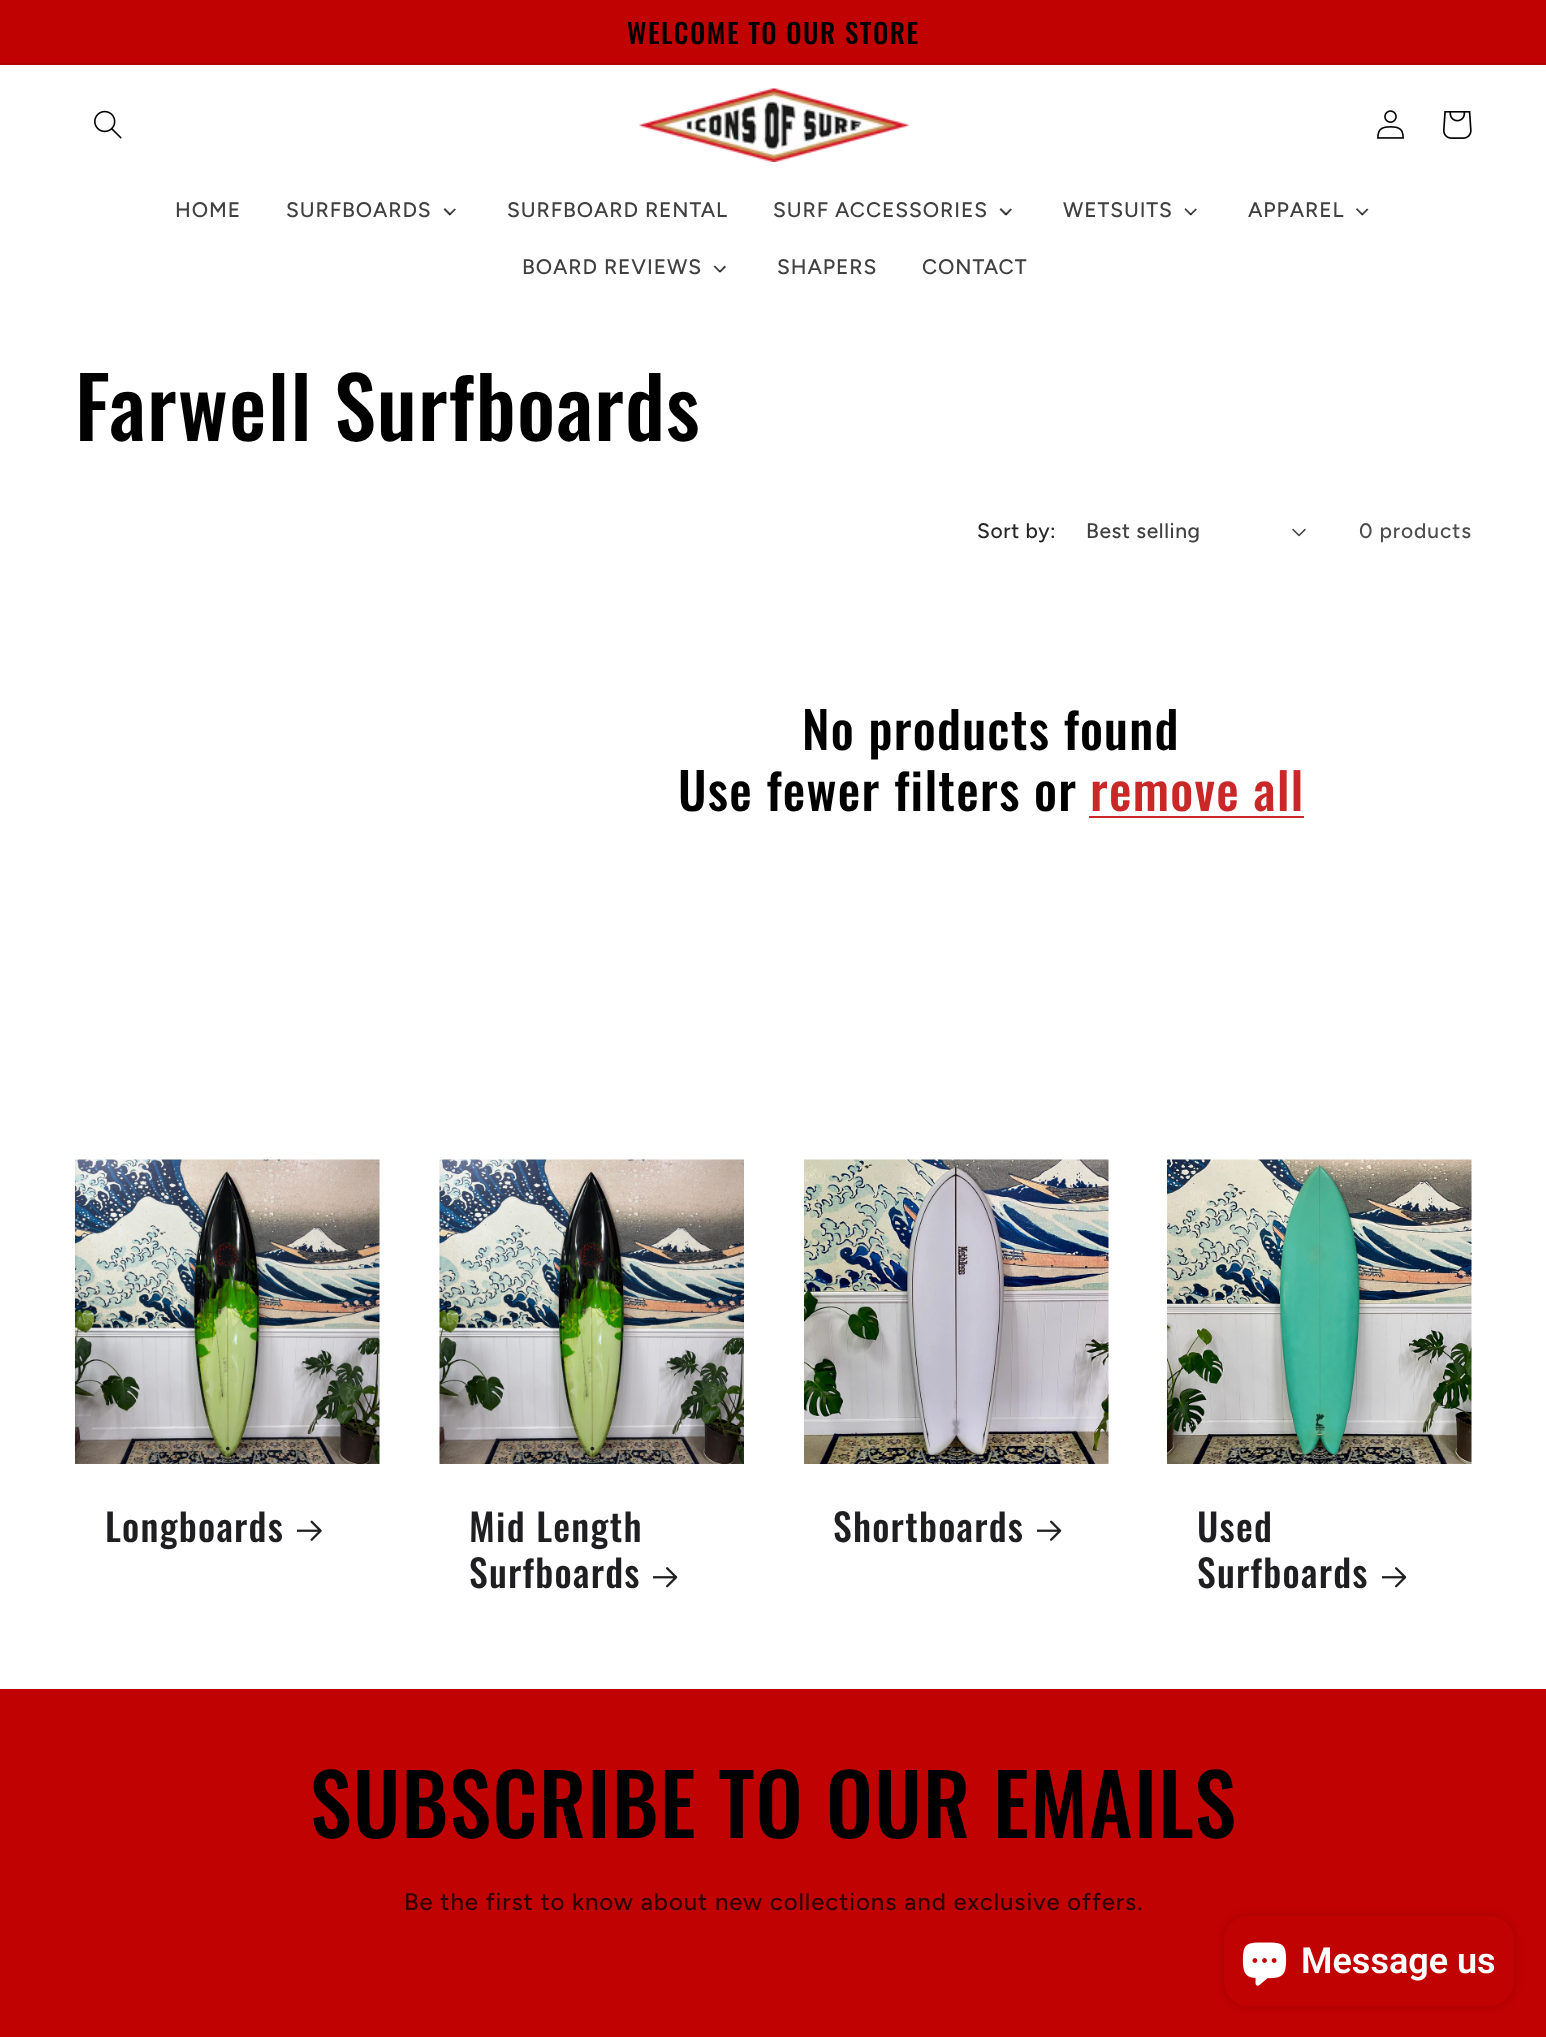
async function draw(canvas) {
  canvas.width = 1546;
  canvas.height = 2037;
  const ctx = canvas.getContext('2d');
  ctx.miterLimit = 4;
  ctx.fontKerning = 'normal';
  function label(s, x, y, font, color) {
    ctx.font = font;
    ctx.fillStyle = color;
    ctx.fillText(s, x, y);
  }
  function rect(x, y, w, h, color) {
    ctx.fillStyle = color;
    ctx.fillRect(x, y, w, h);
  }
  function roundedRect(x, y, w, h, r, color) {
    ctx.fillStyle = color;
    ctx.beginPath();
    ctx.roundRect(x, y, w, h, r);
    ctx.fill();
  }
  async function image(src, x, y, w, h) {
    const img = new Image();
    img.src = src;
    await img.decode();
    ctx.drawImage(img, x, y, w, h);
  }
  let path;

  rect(0, 0, 1546, 2037, '#fff');
  rect(0, 0, 1546, 63, '#c10202');
  rect(0, 63, 1546, 2, '#b20202');
  ctx.letterSpacing = '1.5px';
  label('WELCOME TO OUR STORE', 627, 44, '500 27.25px Oswald', '#000');
  await image('assets/img1.png', 94, 110, 28, 29);
  await image('assets/img2.png', 638, 88, 271, 74);
  await image('assets/img3.png', 1377, 110, 27, 29);
  await image('assets/img4.png', 1443, 111, 29, 28);
  ctx.letterSpacing = '0.9px';
  label('HOME', 175, 217, '500 21px Figtree', '#404040');
  label('SURFBOARDS', 286, 217, '500 21px Figtree', '#404040');
  path = new Path2D('M454.5 208.5L456 209.5L450 215.5L449 214Z');
  ctx.fill(path);
  ctx.fillStyle = '#000000bf';
  path = new Path2D('M445 208L451 214L449.5 215.5L443.5 209.5Z');
  ctx.fill(path);
  label('SURFBOARD RENTAL', 507, 217, '500 21px Figtree', '#404040');
  label('SURF ACCESSORIES', 773, 217, '500 21px Figtree', '#404040');
  path = new Path2D('M1010.5 208.5L1012 209.5L1006.5 215.5L1005 214Z');
  ctx.fill(path);
  ctx.fillStyle = '#000000bf';
  path = new Path2D('M1001 208L1007 214L1005.5 215.5L999.5 209.5Z');
  ctx.fill(path);
  label('WETSUITS', 1063, 217, '500 21px Figtree', '#404040');
  path = new Path2D('M1195.5 208.5L1197 209.5L1191 215.5L1190 214Z');
  ctx.fill(path);
  ctx.fillStyle = '#000000bf';
  path = new Path2D('M1185.5 208L1191.5 214L1190.5 215.5L1184.5 209.5Z');
  ctx.fill(path);
  label('APPAREL', 1248, 217, '500 21px Figtree', '#404040');
  path = new Path2D('M1367 208.5L1368.5 209.5L1362.5 215.5L1361.5 214Z');
  ctx.fill(path);
  ctx.fillStyle = '#000000bf';
  path = new Path2D('M1357 208L1363 214L1362 215.5L1356 209.5Z');
  ctx.fill(path);
  label('BOARD REVIEWS', 522, 274, '500 21px Figtree', '#404040');
  path = new Path2D('M724.5 265.5L726 267L720.5 272.5L719 271.5Z');
  ctx.fill(path);
  ctx.fillStyle = '#000000bf';
  path = new Path2D('M715 265.5L721 271.5L719.5 272.5L713.5 266.5Z');
  ctx.fill(path);
  label('SHAPERS', 777, 274, '500 21px Figtree', '#404040');
  label('CONTACT', 922, 274, '500 21px Figtree', '#404040');
  ctx.letterSpacing = '1.25px';
  label('Farwell Surfboards', 75, 441, '500 84px Oswald', '#000');
  ctx.letterSpacing = '0.6px';
  label('Sort by:', 977, 538, '500 21px Figtree', '#262626');
  label('Best selling', 1086, 538, '500 21px Figtree', '#404040');
  await image('assets/img5.png', 1292, 528, 14, 9);
  ctx.letterSpacing = '0.9px';
  label('0 products', 1359, 538, '500 21px Figtree', '#4d4d4d');
  ctx.letterSpacing = '1.25px';
  label('No products found', 802, 750, '500 50.5px Oswald', '#000');
  label('Use fewer filters or', 678, 811, '500 50.5px Oswald', '#000');
  label('remove all', 1090, 811, '500 50.5px Oswald', '#ca2828');
  rect(1089, 816, 215, 2, '#ca2828');
  await image('assets/img6.png', 75, 1159, 305, 305);
  label('Longboards', 105, 1542, '500 37.75px Oswald', '#1f1f21');
  await image('assets/img7.png', 297, 1520, 25, 21);
  await image('assets/img8.png', 439, 1159, 305, 305);
  label('Mid Length', 469, 1542, '500 37.75px Oswald', '#1f1f21');
  label('Surfboards', 469, 1588, '500 37.75px Oswald', '#1f1f21');
  await image('assets/img9.png', 653, 1567, 25, 21);
  await image('assets/img10.png', 804, 1159, 305, 305);
  label('Shortboards', 833, 1542, '500 37.75px Oswald', '#1f1f21');
  await image('assets/img11.png', 1037, 1520, 25, 21);
  await image('assets/img12.png', 1167, 1159, 305, 305);
  label('Used', 1197, 1542, '500 37.75px Oswald', '#1f1f21');
  label('Surfboards', 1197, 1588, '500 37.75px Oswald', '#1f1f21');
  await image('assets/img9.png', 1382, 1567, 25, 21);
  rect(0, 1689, 1546, 348, '#c10202');
  label('SUBSCRIBE TO OUR EMAILS', 310, 1838, '500 84px Oswald', '#000');
  ctx.letterSpacing = '0.9px';
  label('Be the first to know about new collections and exclusive offers.', 404, 1910, '500 24px Figtree', '#300101');
  ctx.fillStyle = '#00000026';
  ctx.filter = 'blur(4px)';
  ctx.beginPath();
  ctx.roundRect(1224, 1916, 290, 90, 24);
  ctx.fill();
  ctx.filter = 'none';
  roundedRect(1224, 1916, 290, 90, 24, '#c10202');
  await image('assets/img13.png', 1242, 1942, 45, 44);
  ctx.letterSpacing = '0px';
  label('Message us', 1301, 1973, '600 36px Roboto', '#fff');
}

draw(document.querySelector('canvas'));
